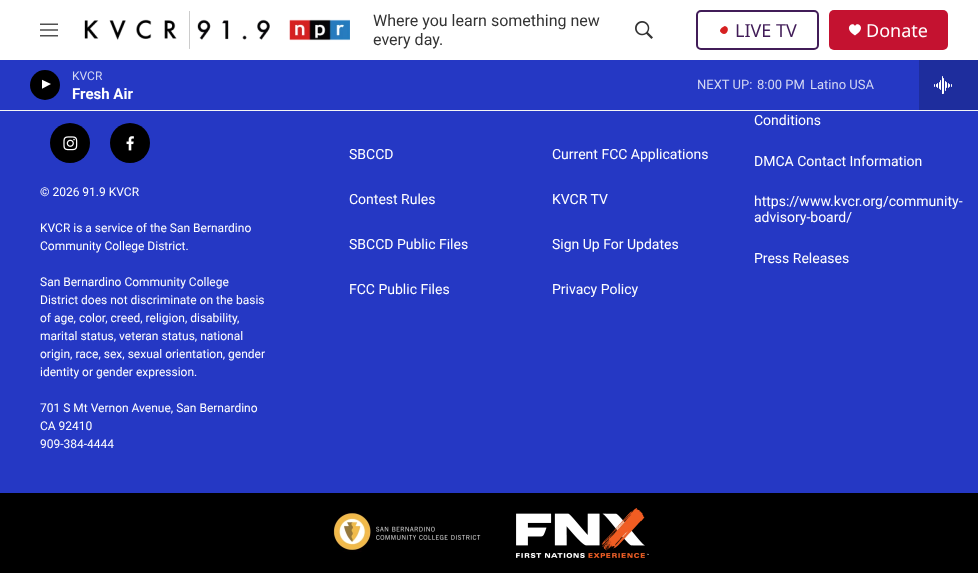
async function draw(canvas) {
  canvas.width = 978;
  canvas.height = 573;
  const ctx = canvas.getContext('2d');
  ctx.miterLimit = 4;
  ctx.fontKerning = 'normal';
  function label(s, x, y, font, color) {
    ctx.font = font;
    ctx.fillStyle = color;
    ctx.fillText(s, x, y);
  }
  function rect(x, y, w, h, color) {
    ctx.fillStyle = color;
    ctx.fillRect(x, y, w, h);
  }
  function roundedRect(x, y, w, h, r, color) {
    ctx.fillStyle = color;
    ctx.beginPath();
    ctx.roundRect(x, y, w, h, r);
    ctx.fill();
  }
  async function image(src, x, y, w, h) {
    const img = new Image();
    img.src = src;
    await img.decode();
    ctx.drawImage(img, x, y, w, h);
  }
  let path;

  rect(0, 0, 978, 573, '#2538c4');
  rect(0, 0, 978, 60, '#fff');
  rect(0, 110, 978, 1, '#f5f5f5');
  await image('assets/img1.png', 40, 23, 18, 14);
  await image('assets/img2.png', 84, 11, 266, 38);
  label('Where you learn something new', 373, 26, '16px Roboto', '#333');
  label('every day.', 373, 45, '16px Roboto', '#333');
  await image('assets/img3.png', 635, 21, 18, 18);
  ctx.beginPath();
  ctx.roundRect(697, 11, 121, 38, 4);
  ctx.strokeStyle = '#411c58';
  ctx.lineWidth = 2;
  ctx.stroke();
  ctx.fillStyle = '#d62021';
  path = new Path2D('M725 26C731 27.5 726.5 37 721.5 33C721 32.5 720 31.5 720 31C720 28.5 723 26.5 725 26Z');
  ctx.fill(path);
  label('LIVE TV', 735, 37, '18px Noto Sans', '#411c58');
  roundedRect(829, 10, 119, 40, 5, '#c41230');
  ctx.fillStyle = '#fff';
  path = new Path2D('M855 26C853 21 842.5 28 855 35.5C867.5 28 857 21 855 26Z');
  ctx.fill(path);
  label('Donate', 866, 37, '18px Noto Sans', '#fff');
  ctx.fillStyle = '#000';
  ctx.beginPath();
  ctx.arc(45, 85, 15, 0, 2 * Math.PI);
  ctx.fill();
  ctx.save();
  ctx.beginPath();
  ctx.rect(42, 78, 12, 15);
  ctx.clip();
  ctx.fillStyle = '#fff';
  path = new Path2D('M41.5 79.5L51 84L41.5 89Z');
  ctx.fill(path);
  ctx.restore();
  label('KVCR', 72, 80, '12px Roboto', '#d3d7f3');
  label('Fresh Air', 72, 99, 'bold 15px Roboto', '#fff');
  label('NEXT UP:', 697, 89, '13px Roboto', '#d3d7f3');
  label('8:00 PM', 757, 89, '13px Roboto', '#d3d7f3');
  label('Latino USA', 810, 89, '13px Roboto', '#d3d7f3');
  rect(919, 60, 59, 50, '#1e2d9d');
  await image('assets/img4.png', 934, 76, 18, 18);
  ctx.fillStyle = '#000';
  ctx.beginPath();
  ctx.arc(70, 143, 20, 0, 2 * Math.PI);
  ctx.fill();
  await image('assets/img5.png', 63, 136, 15, 15);
  ctx.beginPath();
  ctx.arc(130, 143, 20, 0, 2 * Math.PI);
  ctx.fill();
  await image('assets/img6.png', 126, 136, 8, 15);
  label('© 2026 91.9 KVCR', 40, 196, '12px Roboto', '#fff');
  label('KVCR is a service of the San Bernardino', 40, 232, '12px Roboto', '#fff');
  label('Community College District.', 40, 250, '12px Roboto', '#fff');
  label('San Bernardino Community College', 40, 286, '12px Roboto', '#fff');
  label('District does not discriminate on the basis', 40, 304, '12px Roboto', '#fff');
  label('of age, color, creed, religion, disability,', 40, 322, '12px Roboto', '#fff');
  label('marital status, veteran status, national', 40, 340, '12px Roboto', '#fff');
  label('origin, race, sex, sexual orientation, gender', 40, 358, '12px Roboto', '#fff');
  label('identity or gender expression.', 40, 376, '12px Roboto', '#fff');
  label('701 S Mt Vernon Avenue, San Bernardino', 40, 412, '12px Roboto', '#fff');
  label('CA 92410', 40, 430, '12px Roboto', '#fff');
  label('909-384-4444', 40, 448, '12px Roboto', '#fff');
  label('Conditions', 754, 125, '14px Roboto', '#fff');
  label('SBCCD', 349, 159, '14px Roboto', '#fff');
  label('Current FCC Applications', 552, 159, '14px Roboto', '#fff');
  label('DMCA Contact Information', 754, 166, '14px Roboto', '#fff');
  label('Contest Rules', 349, 204, '14px Roboto', '#fff');
  label('KVCR TV', 552, 204, '14px Roboto', '#fff');
  label('https://www.kvcr.org/community-', 754, 206, '14px Roboto', '#fff');
  label('advisory-board/', 754, 222, '14px Roboto', '#fff');
  label('SBCCD Public Files', 349, 249, '14px Roboto', '#fff');
  label('Sign Up For Updates', 552, 249, '14px Roboto', '#fff');
  label('Press Releases', 754, 263, '14px Roboto', '#fff');
  label('FCC Public Files', 349, 294, '14px Roboto', '#fff');
  label('Privacy Policy', 552, 294, '14px Roboto', '#fff');
  rect(0, 493, 978, 80, '#000');
  await image('assets/img7.png', 333, 512, 148, 40);
  await image('assets/img8.png', 516, 508, 133, 50);
}

draw(document.querySelector('canvas'));
